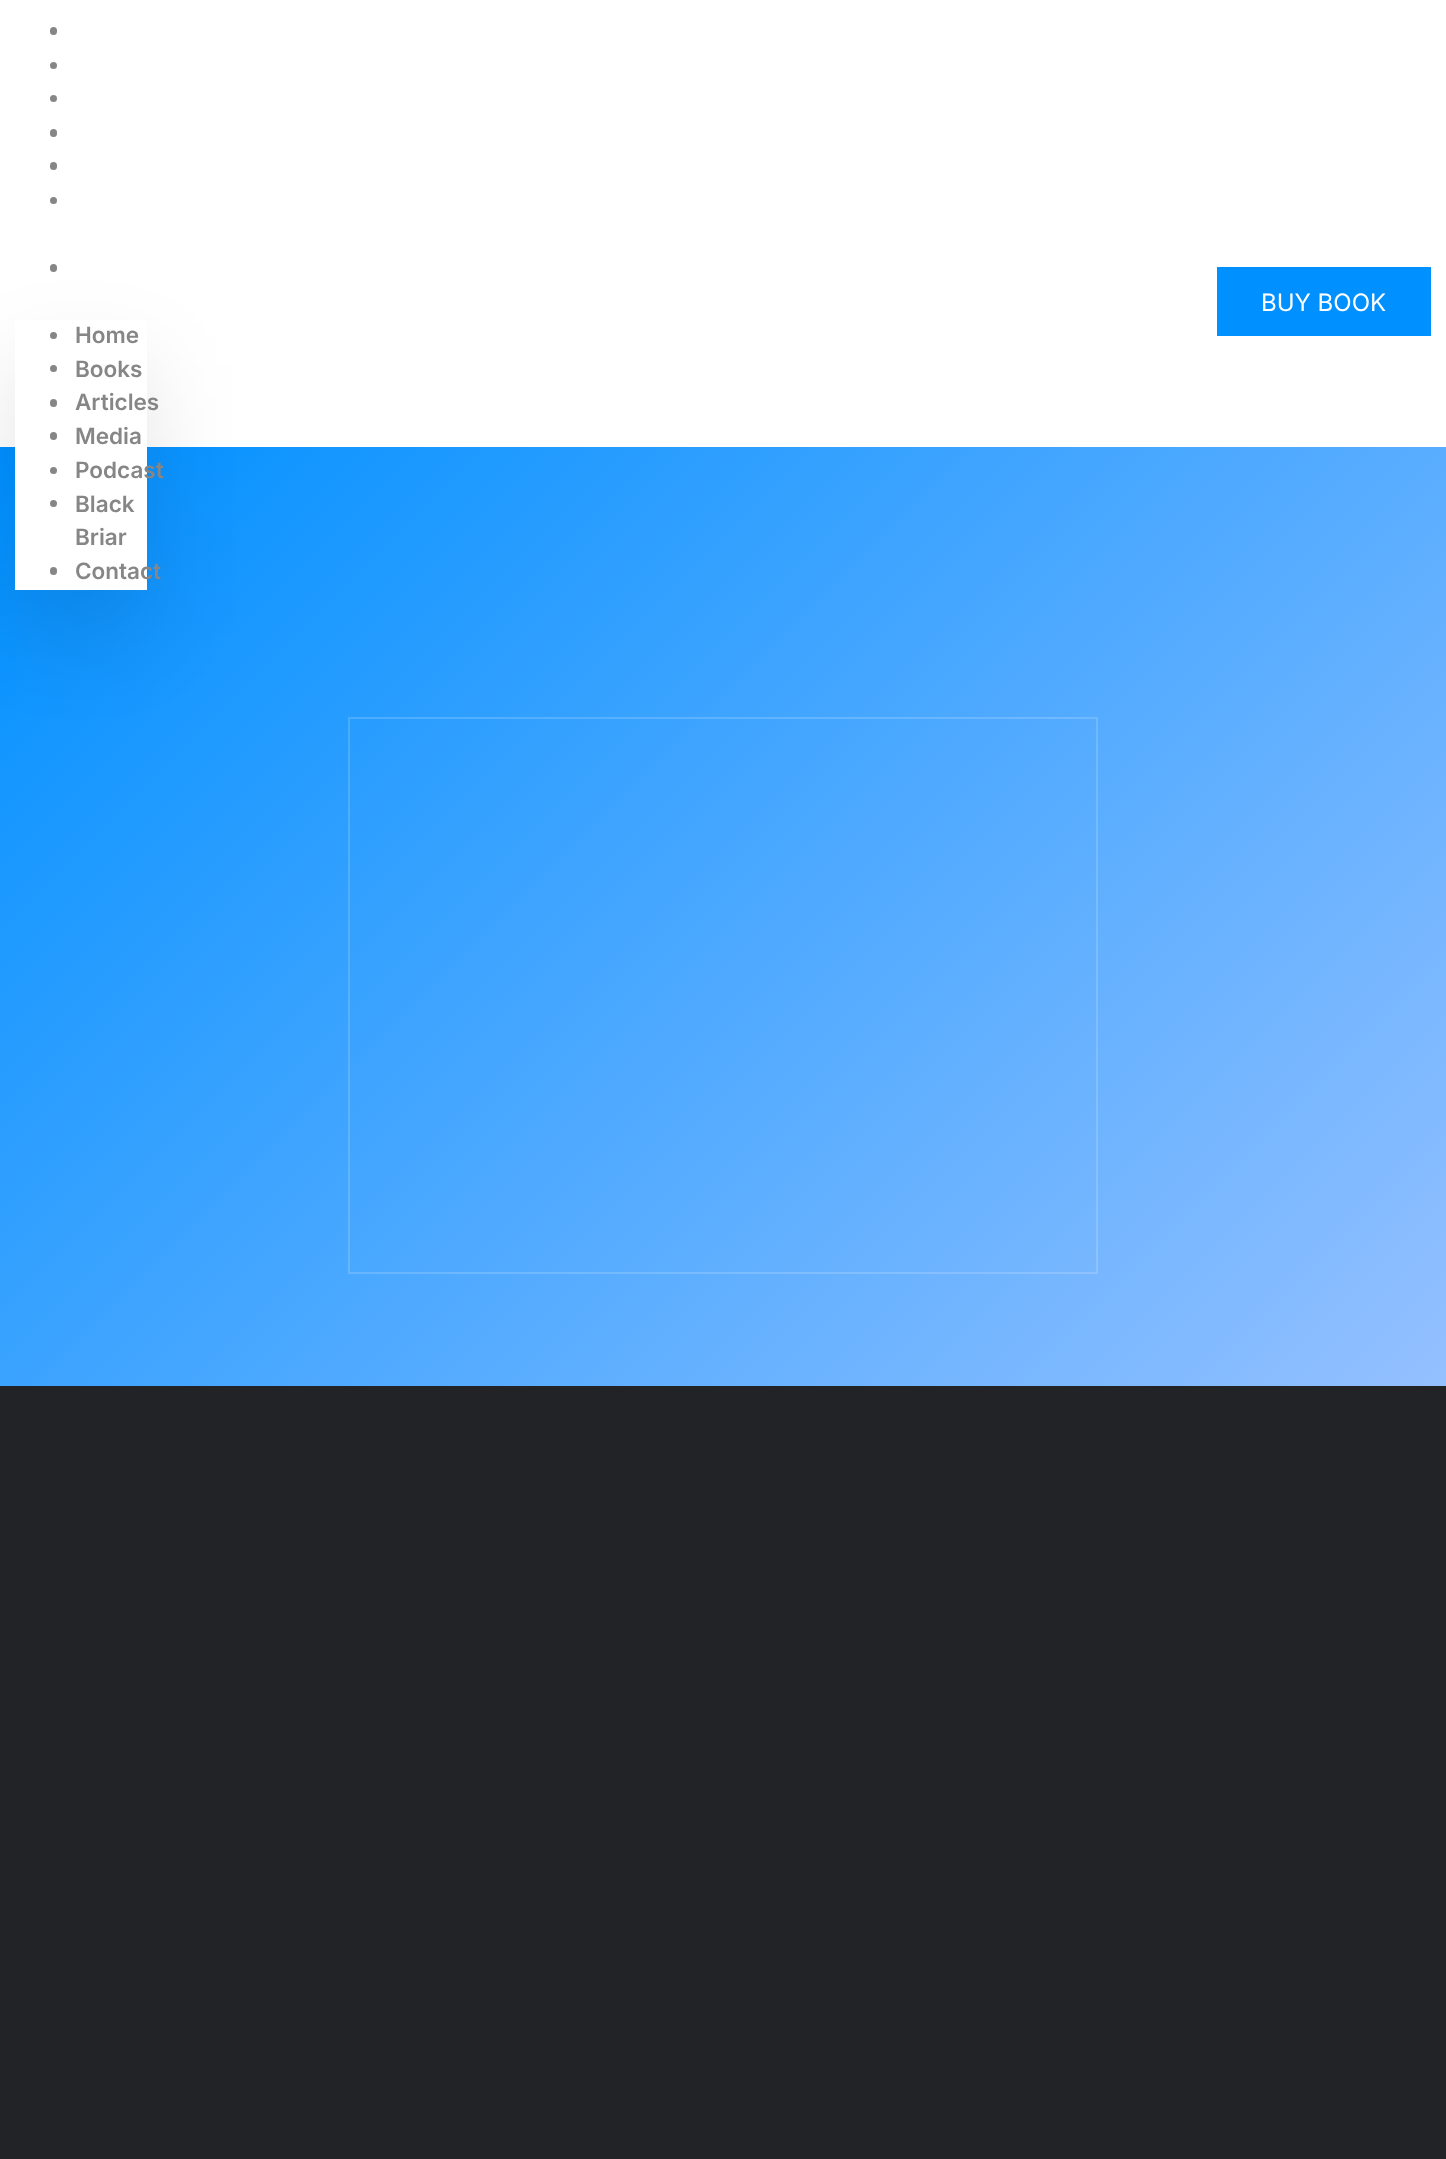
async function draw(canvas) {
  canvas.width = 1446;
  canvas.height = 2159;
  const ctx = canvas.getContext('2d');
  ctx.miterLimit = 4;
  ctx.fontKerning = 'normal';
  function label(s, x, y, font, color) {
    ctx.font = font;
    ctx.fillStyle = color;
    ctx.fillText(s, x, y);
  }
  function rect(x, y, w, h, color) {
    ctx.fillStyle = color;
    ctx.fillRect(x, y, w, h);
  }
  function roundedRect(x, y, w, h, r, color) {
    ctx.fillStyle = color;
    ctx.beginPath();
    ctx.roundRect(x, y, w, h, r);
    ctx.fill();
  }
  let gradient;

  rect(0, 0, 1446, 2159, '#fff');
  rect(1217, 267, 214, 69, '#0090ff');
  label('BUY BOOK', 1261, 311, '24px Inter', '#fff');
  roundedRect(50, 27, 7, 8, 3.5, '#868686');
  ctx.beginPath();
  ctx.arc(53.5, 65.5, 3.5, 0, 2 * Math.PI);
  ctx.fill();
  ctx.beginPath();
  ctx.arc(53.5, 98.5, 3.5, 0, 2 * Math.PI);
  ctx.fill();
  roundedRect(50, 129, 7, 8, 3.5, '#868686');
  roundedRect(50, 162, 7, 8, 3.5, '#868686');
  ctx.beginPath();
  ctx.arc(53.5, 200.5, 3.5, 0, 2 * Math.PI);
  ctx.fill();
  gradient = ctx.createLinearGradient(127, 320, 1319, 1513);
  gradient.addColorStop(0, '#0090ff');
  gradient.addColorStop(1, '#94c0ff');
  ctx.fillStyle = gradient;
  ctx.fillRect(0, 447, 1446, 939);
  ctx.fillStyle = '#0000001a';
  ctx.filter = 'blur(45px)';
  ctx.beginPath();
  ctx.rect(15, 365, 132, 270);
  ctx.fill();
  ctx.filter = 'none';
  roundedRect(50, 264, 7, 8, 3.5, '#868686');
  rect(15, 320, 132, 270, '#fff');
  ctx.fillStyle = '#868686';
  ctx.beginPath();
  ctx.arc(53.5, 335.5, 3.5, 0, 2 * Math.PI);
  ctx.fill();
  label('Home', 75, 343, '600 22.5px Inter', '#868686');
  ctx.beginPath();
  ctx.arc(53.5, 368.5, 3.5, 0, 2 * Math.PI);
  ctx.fill();
  label('Books', 75, 377, '600 22.5px Inter', '#868686');
  roundedRect(50, 399, 7, 8, 3.5, '#868686');
  label('Articles', 75, 410, '600 22.5px Inter', '#868686');
  roundedRect(50, 432, 7, 8, 3.5, '#868686');
  label('Media', 75, 444, '600 22.5px Inter', '#868686');
  ctx.beginPath();
  ctx.arc(53.5, 470.5, 3.5, 0, 2 * Math.PI);
  ctx.fill();
  label('Podcast', 75, 478, '600 22.5px Inter', '#868686');
  ctx.beginPath();
  ctx.arc(53.5, 503.5, 3.5, 0, 2 * Math.PI);
  ctx.fill();
  label('Black', 75, 512, '600 22.5px Inter', '#868686');
  label('Briar', 75, 545, '600 22.5px Inter', '#868686');
  roundedRect(50, 567, 7, 8, 3.5, '#868686');
  label('Contact', 75, 579, '600 22.5px Inter', '#868686');
  ctx.strokeStyle = '#ffffff2b';
  ctx.lineWidth = 2;
  ctx.strokeRect(349, 718, 748, 555);
  rect(0, 1386, 1446, 773, '#212327');
}

draw(document.querySelector('canvas'));
